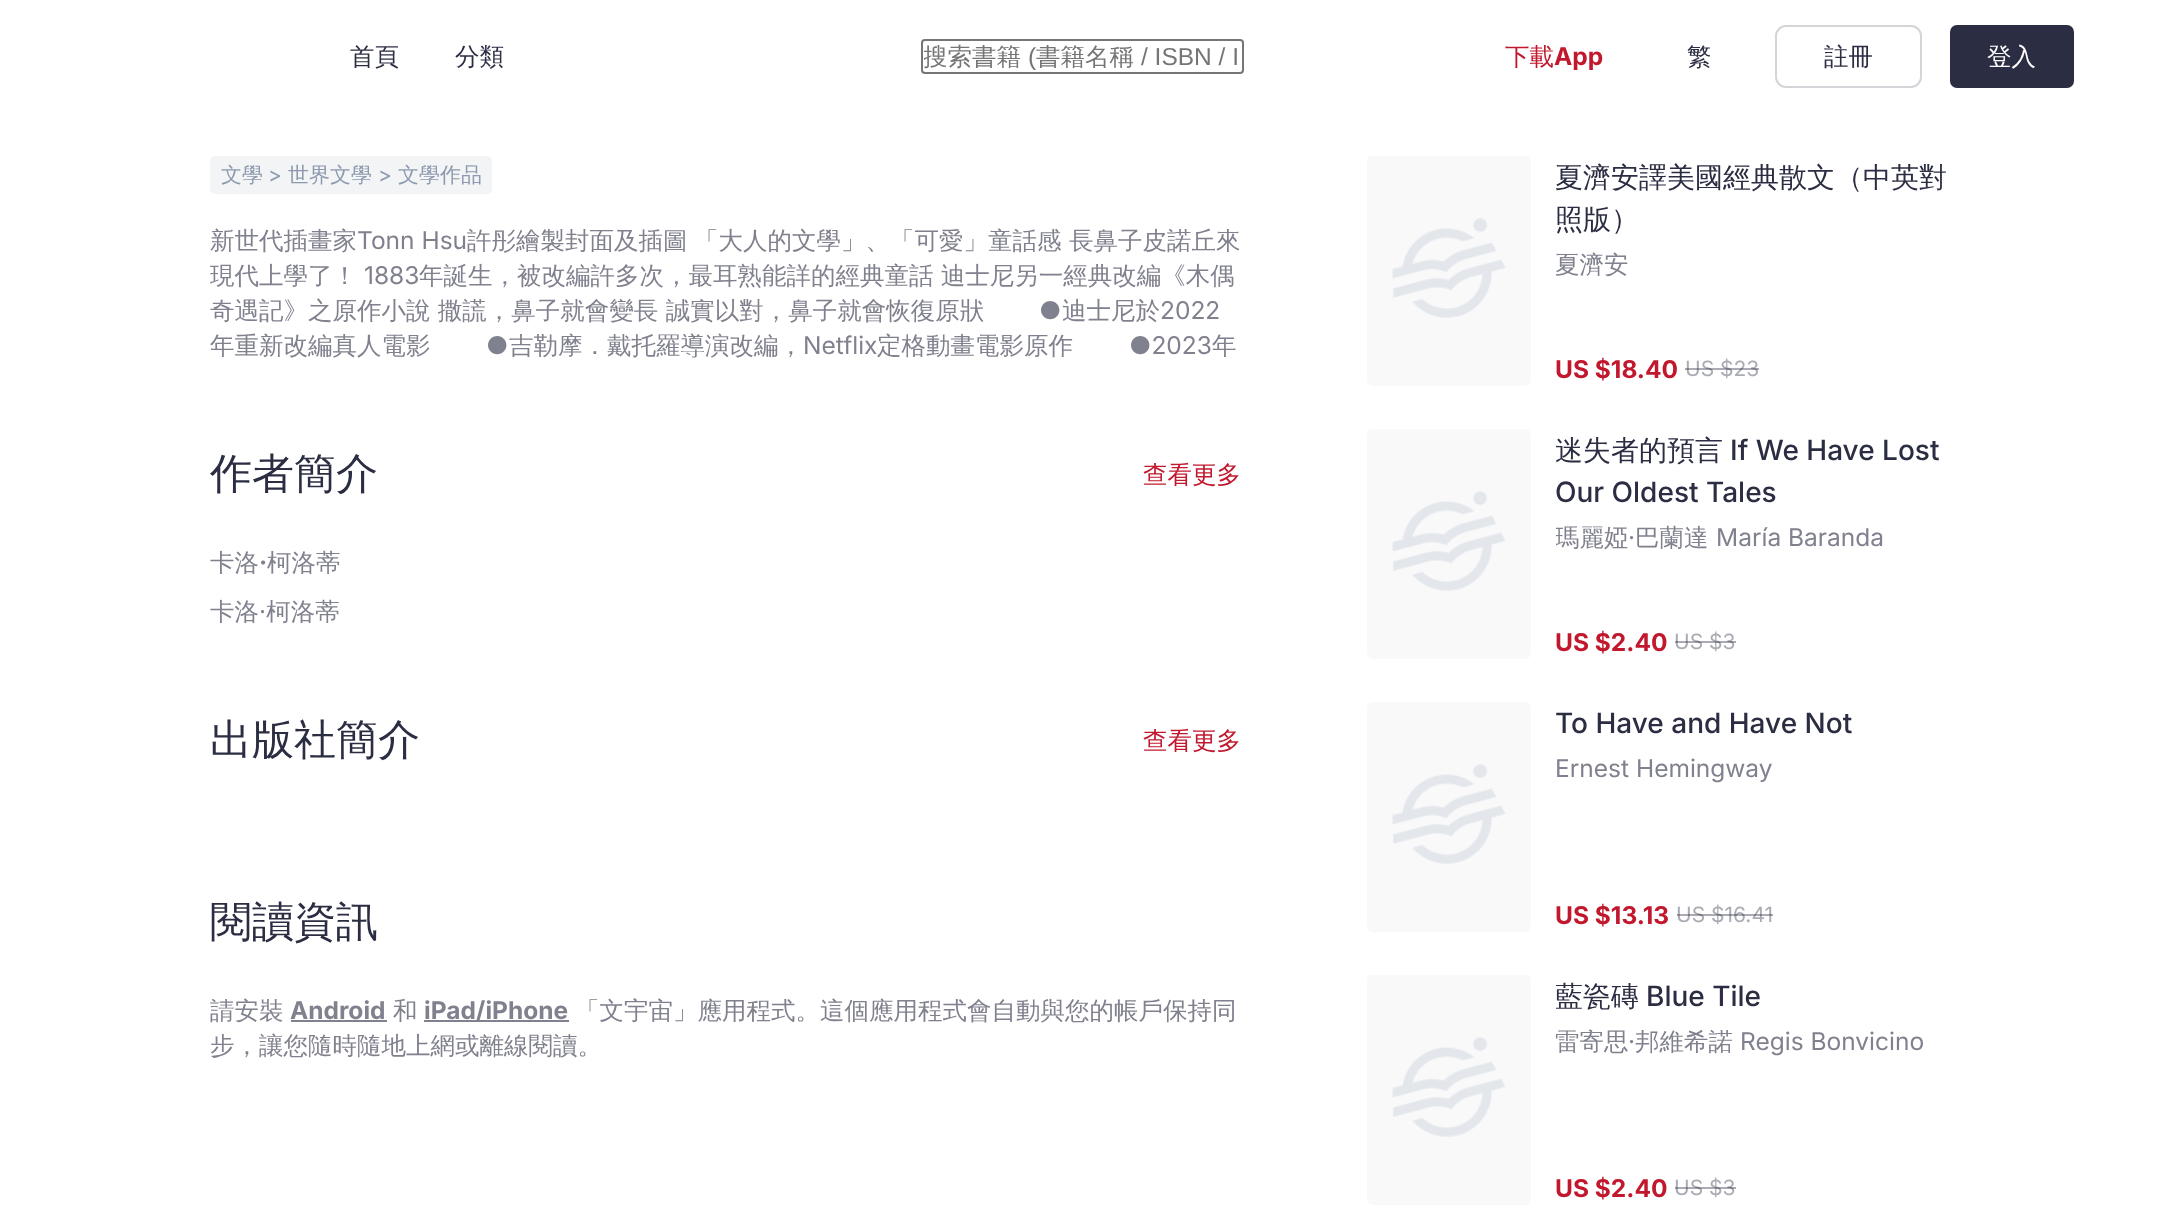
async function draw(canvas) {
  canvas.width = 2157;
  canvas.height = 1225;
  const ctx = canvas.getContext('2d');
  ctx.miterLimit = 4;
  ctx.fontKerning = 'normal';
  function label(s, x, y, font, color) {
    ctx.font = font;
    ctx.fillStyle = color;
    ctx.fillText(s, x, y);
  }
  function rect(x, y, w, h, color) {
    ctx.fillStyle = color;
    ctx.fillRect(x, y, w, h);
  }
  function roundedRect(x, y, w, h, r, color) {
    ctx.fillStyle = color;
    ctx.beginPath();
    ctx.roundRect(x, y, w, h, r);
    ctx.fill();
  }
  async function image(src, x, y, w, h) {
    const img = new Image();
    img.src = src;
    await img.decode();
    ctx.drawImage(img, x, y, w, h);
  }

  rect(0, 0, 2157, 1225, '#fff');
  label('首頁', 350, 65, '500 24.5px WenQuanYi Zen Hei', '#2b2d42');
  label('分類', 455, 65, '500 24.5px WenQuanYi Zen Hei', '#2b2d42');
  ctx.beginPath();
  ctx.roundRect(922, 40, 321, 33, 3);
  ctx.strokeStyle = '#767676';
  ctx.lineWidth = 2;
  ctx.stroke();
  ctx.save();
  ctx.beginPath();
  ctx.rect(924, 42, 317, 28);
  ctx.clip();
  label('搜索書籍', 923, 65, '500 24.5px WenQuanYi Zen Hei', '#757575');
  ctx.restore();
  label('(', 1028, 65, '24.5px Liberation Sans', '#757575');
  label('書籍名稱', 1036, 65, '500 24.5px WenQuanYi Zen Hei', '#757575');
  label('/ ISBN / I', 1141, 65, '24.5px Liberation Sans', '#757575');
  label('下載', 1505, 65, '500 24.5px WenQuanYi Zen Hei', '#c2182e');
  label('App', 1554, 65, 'bold 24.5px Inter', '#c2182e');
  label('繁', 1687, 65, '500 24.5px WenQuanYi Zen Hei', '#2b2d42');
  ctx.beginPath();
  ctx.roundRect(1776, 26, 145, 61, 10);
  ctx.strokeStyle = '#d5d5d9';
  ctx.stroke();
  label('註冊', 1824, 65, '500 24.5px WenQuanYi Zen Hei', '#2b2d42');
  roundedRect(1950, 25, 124, 63, 7, '#2b2d42');
  label('登入', 1987, 65, '500 24.5px WenQuanYi Zen Hei', '#fff');
  roundedRect(210, 156, 282, 38, 5, '#f2f4f6');
  label('文學', 221, 182, '500 21px WenQuanYi Zen Hei', '#8d99ae');
  label('>', 268, 182, '21px Inter', '#8d99ae');
  label('世界文學', 288, 182, '500 21px WenQuanYi Zen Hei', '#8d99ae');
  label('>', 378, 182, '21px Inter', '#8d99ae');
  label('文學作品', 398, 182, '500 21px WenQuanYi Zen Hei', '#8d99ae');
  label('新世代插畫家', 210, 249, '500 24.5px WenQuanYi Zen Hei', '#80818e');
  label('Tonn Hsu', 357, 249, '24.5px Inter', '#80818e');
  label('許彤繪製封面及插圖', 467, 249, '500 24.5px WenQuanYi Zen Hei', '#80818e');
  label('「大人的文學」、「可愛」童話感', 694, 249, '500 24.5px WenQuanYi Zen Hei', '#80818e');
  label('長鼻子皮諾丘來', 1069, 249, '500 24.5px WenQuanYi Zen Hei', '#80818e');
  label('現代上學了！', 210, 284, '500 24.5px WenQuanYi Zen Hei', '#80818e');
  label('1883', 364, 284, '24.5px Inter', '#80818e');
  label('年誕生，被改編許多次，最耳熟能詳的經典童話 迪士尼另一經典改編《木偶', 419, 284, '500 24.5px WenQuanYi Zen Hei', '#80818e');
  label('奇遇記》之原作小說 撒謊，鼻子就會變長 誠實以對，鼻子就會恢復原狀', 210, 319, '500 24.5px WenQuanYi Zen Hei', '#80818e');
  label('●', 1039, 319, '24.5px Inter', '#80818e');
  label('迪士尼於', 1062, 319, '500 24.5px WenQuanYi Zen Hei', '#80818e');
  label('2022', 1160, 319, '24.5px Inter', '#80818e');
  label('年重新改編真人電影', 210, 354, '500 24.5px WenQuanYi Zen Hei', '#80818e');
  label('●', 486, 354, '24.5px Inter', '#80818e');
  label('吉勒摩．戴托羅導演改編，', 509, 354, '500 24.5px WenQuanYi Zen Hei', '#80818e');
  label('Netflix', 803, 354, '24.5px Inter', '#80818e');
  label('定格動畫電影原作', 877, 354, '500 24.5px WenQuanYi Zen Hei', '#80818e');
  label('●2023', 1129, 354, '24.5px Inter', '#80818e');
  label('年', 1212, 354, '500 24.5px WenQuanYi Zen Hei', '#80818e');
  label('作者簡介', 210, 488, '500 42px WenQuanYi Zen Hei', '#2b2d42');
  label('查看更多', 1143, 483, '500 24.5px WenQuanYi Zen Hei', '#c2182e');
  label('卡洛', 210, 571, '500 24.5px WenQuanYi Zen Hei', '#80818e');
  label('‧', 259, 571, 'bold 24.5px Inter', '#80818e');
  label('柯洛蒂', 267, 571, '500 24.5px WenQuanYi Zen Hei', '#80818e');
  label('卡洛 柯洛蒂', 210, 620, '500 24.5px WenQuanYi Zen Hei', '#80818e');
  label('‧', 259, 620, '24.5px Inter', '#80818e');
  label('出版社簡介', 210, 754, '500 42px WenQuanYi Zen Hei', '#2b2d42');
  label('查看更多', 1143, 749, '500 24.5px WenQuanYi Zen Hei', '#c2182e');
  label('閱讀資訊', 210, 936, '500 42px WenQuanYi Zen Hei', '#2b2d42');
  label('請安裝', 210, 1019, '500 24.5px WenQuanYi Zen Hei', '#80818e');
  label('Android', 290, 1019, 'bold 24.5px Inter', '#80818e');
  rect(291, 1020, 96, 2, '#80818e');
  label('和', 393, 1019, '500 24.5px WenQuanYi Zen Hei', '#80818e');
  rect(424, 1020, 145, 2, '#80818e');
  label('iPad/iPhone', 424, 1019, 'bold 24.5px Inter', '#80818e');
  label('「文宇宙」應用程式。這個應用程式會自動與您的帳戶保持同', 575, 1019, '500 24.5px WenQuanYi Zen Hei', '#80818e');
  label('步，讓您隨時隨地上網或離線閱讀。', 210, 1054, '500 24.5px WenQuanYi Zen Hei', '#80818e');
  await image('assets/img1.png', 1367, 156, 164, 230);
  label('夏濟安譯美國經典散文（中英對', 1555, 187, '500 28px WenQuanYi Zen Hei', '#2b2d42');
  label('照版）', 1555, 229, '500 28px WenQuanYi Zen Hei', '#2b2d42');
  label('夏濟安', 1555, 273, '500 24.5px WenQuanYi Zen Hei', '#80818e');
  label('US $18.40', 1555, 378, 'bold 24.5px Inter', '#c2182e');
  label('US $23', 1685, 376, '21px Inter', '#aaabb3');
  rect(1685, 368, 49, 2, '#2b2d4266');
  rect(1734, 368, 25, 2, '#2b2d4266');
  await image('assets/img1.png', 1367, 429, 164, 230);
  ctx.save();
  ctx.beginPath();
  ctx.rect(1556, 429, 392, 84);
  ctx.clip();
  label('迷失者的預言', 1555, 460, '500 28px WenQuanYi Zen Hei', '#2b2d42');
  ctx.restore();
  label('If We Have Lost', 1730, 460, '500 28px Inter', '#2b2d42');
  label('Our Oldest Tales', 1555, 502, '500 28px Inter', '#2b2d42');
  ctx.save();
  ctx.beginPath();
  ctx.rect(1556, 520, 392, 35);
  ctx.clip();
  label('瑪麗婭', 1555, 546, '500 24.5px WenQuanYi Zen Hei', '#80818e');
  ctx.restore();
  label('‧', 1628, 546, '24.5px Inter', '#80818e');
  label('巴蘭達', 1635, 546, '500 24.5px WenQuanYi Zen Hei', '#80818e');
  label('María Baranda', 1716, 546, '24.5px Inter', '#80818e');
  label('US $2.40', 1555, 651, 'bold 24.5px Inter', '#c2182e');
  label('US $3', 1674, 649, '21px Inter', '#aaabb3');
  rect(1675, 641, 49, 2, '#2b2d4266');
  rect(1724, 641, 12, 2, '#2b2d4266');
  await image('assets/img1.png', 1367, 702, 164, 230);
  label('To Have and Have Not', 1555, 733, '500 28px Inter', '#2b2d42');
  label('Ernest Hemingway', 1555, 777, '24.5px Inter', '#80818e');
  label('US $13.13', 1555, 924, 'bold 24.5px Inter', '#c2182e');
  label('US $16.41', 1676, 922, '21px Inter', '#aaabb3');
  rect(1677, 914, 47, 2, '#2b2d4266');
  rect(1724, 914, 49, 2, '#2b2d4266');
  await image('assets/img1.png', 1367, 975, 164, 230);
  ctx.save();
  ctx.beginPath();
  ctx.rect(1556, 975, 392, 42);
  ctx.clip();
  label('藍瓷磚', 1555, 1006, '500 28px WenQuanYi Zen Hei', '#2b2d42');
  ctx.restore();
  label('Blue Tile', 1646, 1006, '500 28px Inter', '#2b2d42');
  ctx.save();
  ctx.beginPath();
  ctx.rect(1556, 1024, 392, 35);
  ctx.clip();
  label('雷寄思', 1555, 1050, '500 24.5px WenQuanYi Zen Hei', '#80818e');
  ctx.restore();
  label('‧', 1628, 1050, '24.5px Inter', '#80818e');
  label('邦維希諾', 1635, 1050, '500 24.5px WenQuanYi Zen Hei', '#80818e');
  label('Regis Bonvicino', 1740, 1050, '24.5px Inter', '#80818e');
  label('US $2.40', 1555, 1197, 'bold 24.5px Inter', '#c2182e');
  label('US $3', 1674, 1195, '21px Inter', '#aaabb3');
  rect(1675, 1187, 49, 2, '#2b2d4266');
  rect(1724, 1187, 12, 2, '#2b2d4266');
}

draw(document.querySelector('canvas'));
